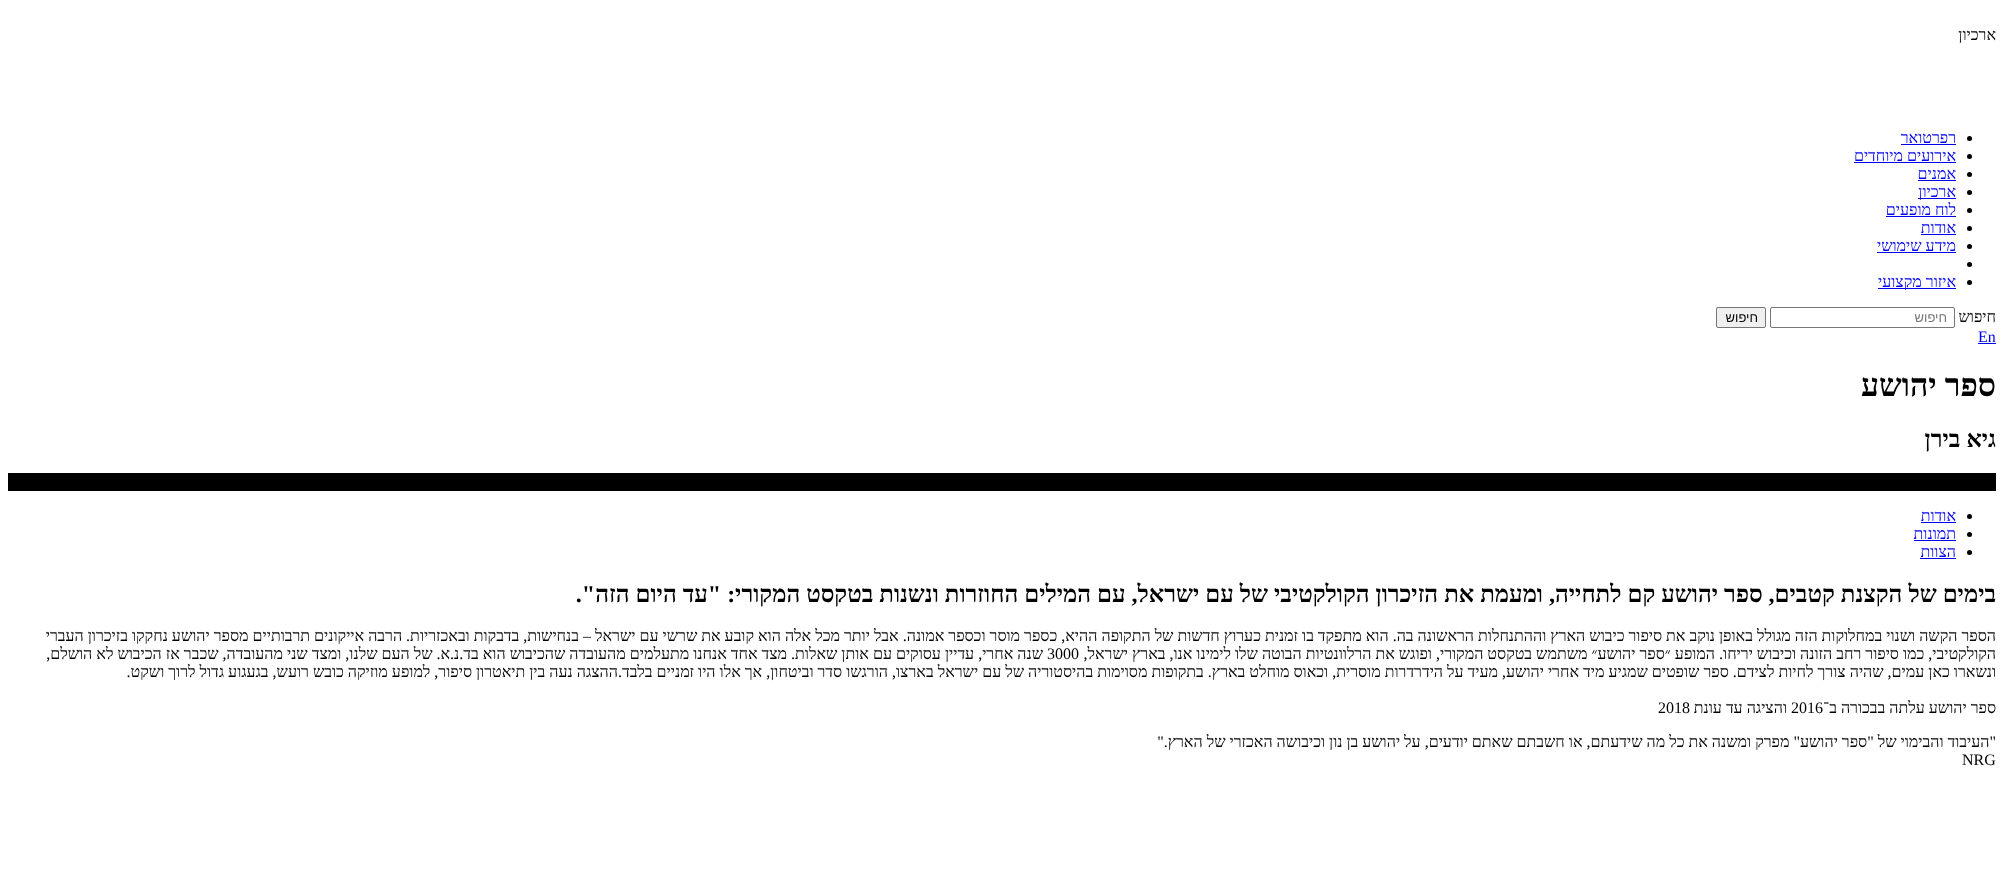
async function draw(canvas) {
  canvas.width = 2004;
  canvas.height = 871;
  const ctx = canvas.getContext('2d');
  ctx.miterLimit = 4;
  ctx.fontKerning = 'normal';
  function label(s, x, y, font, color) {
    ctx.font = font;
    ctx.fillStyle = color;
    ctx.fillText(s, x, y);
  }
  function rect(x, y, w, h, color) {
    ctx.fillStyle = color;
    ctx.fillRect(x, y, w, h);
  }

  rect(0, 0, 2004, 871, '#fff');
  ctx.direction = 'rtl';
  label('ארכיון', 1996, 40, '16px Liberation Serif', '#000');
  ctx.beginPath();
  ctx.arc(1969.5, 138.5, 2.5, 0, 2 * Math.PI);
  ctx.fill();
  label('רפרטואר', 1956, 143, '16px Liberation Serif', '#00e');
  rect(1901, 144, 55, 1, '#00e');
  ctx.fillStyle = '#000';
  ctx.beginPath();
  ctx.arc(1969.5, 156.5, 2.5, 0, 2 * Math.PI);
  ctx.fill();
  label('אירועים מיוחדים', 1956, 161, '16px Liberation Serif', '#00e');
  rect(1854, 162, 102, 1, '#00e');
  ctx.fillStyle = '#000';
  ctx.beginPath();
  ctx.arc(1969.5, 174.5, 2.5, 0, 2 * Math.PI);
  ctx.fill();
  label('אמנים', 1956, 179, '16px Liberation Serif', '#00e');
  rect(1918, 180, 38, 1, '#00e');
  ctx.fillStyle = '#000';
  ctx.beginPath();
  ctx.arc(1969.5, 192.5, 2.5, 0, 2 * Math.PI);
  ctx.fill();
  rect(1918, 198, 38, 1, '#00e');
  label('ארכיון', 1956, 197, '16px Liberation Serif', '#00e');
  ctx.fillStyle = '#000';
  ctx.beginPath();
  ctx.arc(1969.5, 210.5, 2.5, 0, 2 * Math.PI);
  ctx.fill();
  label('לוח מופעים', 1956, 215, '16px Liberation Serif', '#00e');
  rect(1886, 216, 70, 1, '#00e');
  ctx.fillStyle = '#000';
  ctx.beginPath();
  ctx.arc(1969.5, 228.5, 2.5, 0, 2 * Math.PI);
  ctx.fill();
  label('אודות', 1956, 233, '16px Liberation Serif', '#00e');
  rect(1921, 234, 35, 1, '#00e');
  ctx.fillStyle = '#000';
  ctx.beginPath();
  ctx.arc(1969.5, 246.5, 2.5, 0, 2 * Math.PI);
  ctx.fill();
  label('מידע שימושי', 1956, 251, '16px Liberation Serif', '#00e');
  rect(1877, 252, 79, 1, '#00e');
  ctx.fillStyle = '#000';
  ctx.beginPath();
  ctx.arc(1969.5, 264.5, 2.5, 0, 2 * Math.PI);
  ctx.fill();
  ctx.beginPath();
  ctx.arc(1969.5, 282.5, 2.5, 0, 2 * Math.PI);
  ctx.fill();
  rect(1878, 288, 78, 1, '#00e');
  label('איזור מקצועי', 1956, 287, '16px Liberation Serif', '#00e');
  label('חיפוש', 1996, 322, '16px Liberation Serif', '#000');
  ctx.beginPath();
  ctx.roundRect(1770.5, 307.5, 184, 20, 1.5);
  ctx.strokeStyle = '#767676';
  ctx.stroke();
  label('חיפוש', 1947, 322, '13px Liberation Sans', '#757575');
  ctx.fillStyle = '#efefef';
  ctx.beginPath();
  ctx.roundRect(1716.5, 307.5, 49, 20, 1.5);
  ctx.fill();
  ctx.stroke();
  label('חיפוש', 1758, 322, '13px Liberation Sans', '#000');
  ctx.direction = 'ltr';
  label('En', 1978, 342, '16px Liberation Serif', '#00e');
  rect(1978, 343, 18, 1, '#00e');
  ctx.direction = 'rtl';
  label('ספר יהושע', 1996, 396, 'bold 32px Liberation Serif', '#000');
  label('גיא בירן', 1996, 447, 'bold 24px Liberation Serif', '#000');
  rect(8, 473, 1988, 18, '#000');
  ctx.beginPath();
  ctx.arc(1969.5, 516.5, 2.5, 0, 2 * Math.PI);
  ctx.fill();
  label('אודות', 1956, 521, '16px Liberation Serif', '#00e');
  rect(1921, 522, 35, 1, '#00e');
  ctx.fillStyle = '#000';
  ctx.beginPath();
  ctx.arc(1969.5, 534.5, 2.5, 0, 2 * Math.PI);
  ctx.fill();
  label('תמונות', 1956, 539, '16px Liberation Serif', '#00e');
  rect(1914, 540, 42, 1, '#00e');
  ctx.fillStyle = '#000';
  ctx.beginPath();
  ctx.arc(1969.5, 552.5, 2.5, 0, 2 * Math.PI);
  ctx.fill();
  label('הצוות', 1956, 557, '16px Liberation Serif', '#00e');
  rect(1920, 558, 36, 1, '#00e');
  label('בימים של הקצנת קטבים, ספר יהושע קם לתחייה, ומעמת את הזיכרון הקולקטיבי של עם ישראל, עם המילים החוזרות ונשנות בטקסט המקורי: "עד היום הזה".', 1996, 602, 'bold 24px Liberation Serif', '#000');
  label('הספר הקשה ושנוי במחלוקות הזה מגולל באופן נוקב את סיפור כיבוש הארץ וההתנחלות הראשונה בה. הוא מתפקד בו זמנית כערוץ חדשות של התקופה ההיא, כספר מוסר וכספר אמונה. אבל יותר מכל אלה הוא קובע את שרשי עם ישראל – בנחישות, בדבקות ובאכזריות. הרבה אייקונים תרבותיים מספר יהושע נחקקו בזיכרון העברי', 1996, 641, '16px Liberation Serif', '#000');
  label('הקולקטיבי, כמו סיפור רחב הזונה וכיבוש יריחו. המופע ״ספר יהושע״ משתמש בטקסט המקורי, ופוגש את הרלוונטיות הבוטה שלו לימינו אנו, בארץ ישראל,', 1996, 659, '16px Liberation Serif', '#000');
  ctx.direction = 'ltr';
  label('3000', 1047, 659, '16px Liberation Serif', '#000');
  ctx.direction = 'rtl';
  label('שנה אחרי, עדיין עסוקים עם אותן שאלות. מצד אחד אנחנו מתעלמים מהעובדה שהכיבוש הוא בד.נ.א. של העם שלנו, ומצד שני מהעובדה, שכבר אז הכיבוש לא הושלם,', 1043, 659, '16px Liberation Serif', '#000');
  label('ונשארו כאן עמים, שהיה צורך לחיות לצידם. ספר שופטים שמגיע מיד אחרי יהושע, מעיד על הידרדרות מוסרית, וכאוס מוחלט בארץ. בתקופות מסוימות בהיסטוריה של עם ישראל בארצו, הורגשו סדר וביטחון, אך אלו היו זמניים בלבד.ההצגה נעה בין תיאטרון סיפור, למופע מוזיקה כובש רועש, בגעגוע גדול לרוך ושקט.', 1996, 677, '16px Liberation Serif', '#000');
  label('ספר יהושע עלתה בבכורה ב־', 1996, 713, '16px Liberation Serif', '#000');
  ctx.direction = 'ltr';
  label('2016', 1791, 713, '16px Liberation Serif', '#000');
  ctx.direction = 'rtl';
  label('והציגה עד עונת', 1787, 713, '16px Liberation Serif', '#000');
  ctx.direction = 'ltr';
  label('2018', 1658, 713, '16px Liberation Serif', '#000');
  ctx.direction = 'rtl';
  label('"העיבוד והבימוי של "ספר יהושע" מפרק ומשנה את כל מה שידעתם, או חשבתם שאתם יודעים, על יהושע בן נון וכיבושה האכזרי של הארץ."', 1996, 747, '16px Liberation Serif', '#000');
  ctx.direction = 'ltr';
  label('NRG', 1962, 765, '16px Liberation Serif', '#000');
}

draw(document.querySelector('canvas'));
